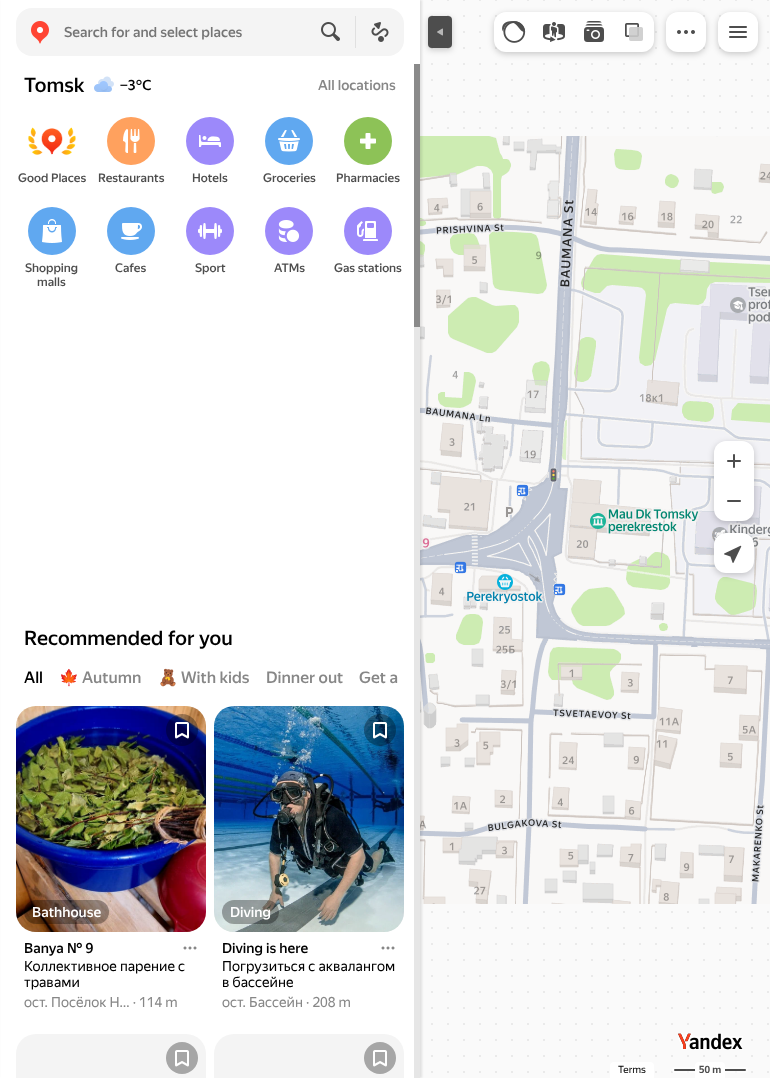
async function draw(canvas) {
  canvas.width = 770;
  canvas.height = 1078;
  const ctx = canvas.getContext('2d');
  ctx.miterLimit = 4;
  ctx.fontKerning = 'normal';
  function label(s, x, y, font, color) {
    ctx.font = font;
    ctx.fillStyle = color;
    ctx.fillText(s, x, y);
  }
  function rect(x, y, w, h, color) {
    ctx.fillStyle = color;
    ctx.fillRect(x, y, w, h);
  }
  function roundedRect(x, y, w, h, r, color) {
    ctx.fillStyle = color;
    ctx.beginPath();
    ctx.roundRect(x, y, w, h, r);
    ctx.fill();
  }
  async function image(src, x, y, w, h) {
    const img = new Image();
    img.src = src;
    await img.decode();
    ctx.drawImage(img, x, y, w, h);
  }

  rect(0, 0, 770, 1078, '#fff');
  await image('assets/img1.png', 420, 0, 350, 1078);
  await image('assets/img33.png', 420, 136, 40, 256);
  await image('assets/img36.png', 420, 392, 40, 256);
  await image('assets/img39.png', 420, 648, 40, 256);
  ctx.fillStyle = '#0000001a';
  ctx.filter = 'blur(1px)';
  ctx.beginPath();
  ctx.rect(2, 0, 420, 1078);
  ctx.fill();
  ctx.filter = 'none';
  ctx.fillStyle = '#00000033';
  ctx.filter = 'blur(3px)';
  ctx.beginPath();
  ctx.roundRect(428, 18, 24, 32, 4);
  ctx.fill();
  ctx.filter = 'none';
  rect(1, 0, 419, 1078, '#fff');
  roundedRect(16, 8, 388, 48, 16, '#f4f4f4');
  await image('assets/img2.png', 31, 21, 18, 23);
  label('Search for and select places', 64, 37, '500 14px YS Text', '#757575');
  await image('assets/img3.png', 321, 22, 19, 19);
  rect(355, 16, 1, 32, '#e0e0e0');
  await image('assets/img4.png', 371, 22, 18, 20);
  ctx.fillStyle = '#00000033';
  ctx.filter = 'blur(3px)';
  ctx.beginPath();
  ctx.roundRect(494, 14, 160, 40, 12);
  ctx.fill();
  ctx.filter = 'none';
  ctx.fillStyle = '#fff';
  ctx.beginPath();
  ctx.roundRect(494, 12, 40, 40, [12, 0, 0, 12]);
  ctx.fill();
  await image('assets/img5.png', 502, 21, 24, 22);
  rect(534, 12, 80, 40, '#fff');
  await image('assets/img6.png', 543, 22, 22, 20);
  ctx.beginPath();
  ctx.roundRect(614, 12, 40, 40, [0, 12, 12, 0]);
  ctx.fill();
  await image('assets/img7.png', 625, 23, 18, 18);
  await image('assets/img8.png', 584, 21, 20, 21);
  ctx.fillStyle = '#00000033';
  ctx.filter = 'blur(3px)';
  ctx.beginPath();
  ctx.roundRect(666, 14, 40, 40, 12);
  ctx.fill();
  ctx.filter = 'none';
  roundedRect(666, 12, 40, 40, 12, '#fff');
  await image('assets/img9.png', 677, 30, 18, 4);
  ctx.fillStyle = '#00000033';
  ctx.filter = 'blur(3px)';
  ctx.beginPath();
  ctx.roundRect(718, 14, 40, 40, 12);
  ctx.fill();
  ctx.filter = 'none';
  roundedRect(718, 12, 40, 40, 12, '#fff');
  await image('assets/img10.png', 729, 26, 18, 12);
  await image('assets/img37.png', 460, 392, 256, 256);
  await image('assets/img38.png', 716, 392, 54, 256);
  ctx.fillStyle = '#00000033';
  ctx.filter = 'blur(3px)';
  ctx.beginPath();
  ctx.roundRect(714, 443, 40, 80, 12);
  ctx.fill();
  ctx.filter = 'none';
  ctx.fillStyle = '#fff';
  ctx.beginPath();
  ctx.roundRect(714, 441, 40, 40, [12, 12, 0, 0]);
  ctx.fill();
  await image('assets/img11.png', 727, 454, 14, 14);
  ctx.beginPath();
  ctx.roundRect(714, 481, 40, 40, [0, 0, 12, 12]);
  ctx.fill();
  await image('assets/img12.png', 727, 500, 14, 2);
  ctx.fillStyle = '#00000033';
  ctx.filter = 'blur(3px)';
  ctx.beginPath();
  ctx.roundRect(714, 535, 40, 40, 12);
  ctx.fill();
  ctx.filter = 'none';
  roundedRect(714, 533, 40, 40, 12, '#fff');
  await image('assets/img13.png', 724, 545, 18, 18);
  roundedRect(428, 16, 24, 32, 4, '#4d4d4d');
  await image('assets/img14.png', 437, 28, 6, 8);
  label('Tomsk', 24, 92, '500 20px YS Text', '#000');
  await image('assets/img15.png', 94, 76, 20, 16);
  label('−3°C', 120, 90, '500 14px YS Text', '#000');
  label('All locations', 318, 90, '500 14px YS Text', '#878787');
  await image('assets/img16.png', 28, 127, 48, 28);
  label('Good Places', 18, 182, '500 12px YS Text', '#4d4d4d');
  ctx.fillStyle = '#ffa15e';
  ctx.beginPath();
  ctx.arc(131, 141, 24, 0, 2 * Math.PI);
  ctx.fill();
  await image('assets/img17.png', 123, 129, 17, 24);
  label('Restaurants', 98, 182, '500 12px YS Text', '#4d4d4d');
  ctx.fillStyle = '#9c89fa';
  ctx.beginPath();
  ctx.arc(210, 141, 24, 0, 2 * Math.PI);
  ctx.fill();
  await image('assets/img18.png', 199, 135, 22, 12);
  label('Hotels', 192, 182, '500 12px YS Text', '#4d4d4d');
  ctx.fillStyle = '#60a8f0';
  ctx.beginPath();
  ctx.arc(289, 141, 24, 0, 2 * Math.PI);
  ctx.fill();
  await image('assets/img19.png', 278, 130, 22, 22);
  label('Groceries', 263, 182, '500 12px YS Text', '#4d4d4d');
  ctx.fillStyle = '#8dc257';
  ctx.beginPath();
  ctx.arc(368, 141, 24, 0, 2 * Math.PI);
  ctx.fill();
  await image('assets/img20.png', 360, 133, 16, 16);
  label('Pharmacies', 336, 182, '500 12px YS Text', '#4d4d4d');
  ctx.fillStyle = '#60a8f0';
  ctx.beginPath();
  ctx.arc(52, 231, 24, 0, 2 * Math.PI);
  ctx.fill();
  await image('assets/img21.png', 42, 219, 20, 24);
  label('Shopping', 25, 272, '500 12px YS Text', '#4d4d4d');
  label('malls', 37, 286, '500 12px YS Text', '#4d4d4d');
  ctx.fillStyle = '#60a8f0';
  ctx.beginPath();
  ctx.arc(131, 231, 24, 0, 2 * Math.PI);
  ctx.fill();
  await image('assets/img22.png', 121, 223, 21, 17);
  label('Cafes', 115, 272, '500 12px YS Text', '#4d4d4d');
  ctx.fillStyle = '#9c89fa';
  ctx.beginPath();
  ctx.arc(210, 231, 24, 0, 2 * Math.PI);
  ctx.fill();
  await image('assets/img23.png', 198, 223, 24, 16);
  label('Sport', 195, 272, '500 12px YS Text', '#4d4d4d');
  ctx.fillStyle = '#9c89fa';
  ctx.beginPath();
  ctx.arc(289, 231, 24, 0, 2 * Math.PI);
  ctx.fill();
  await image('assets/img24.png', 278, 220, 22, 22);
  label('ATMs', 274, 272, '500 12px YS Text', '#4d4d4d');
  ctx.fillStyle = '#9c89fa';
  ctx.beginPath();
  ctx.arc(368, 231, 24, 0, 2 * Math.PI);
  ctx.fill();
  await image('assets/img25.png', 357, 221, 21, 20);
  label('Gas stations', 334, 272, '500 12px YS Text', '#4d4d4d');
  label('Recommended for you', 24, 645, '500 20px YS Text', '#000');
  label('All', 24, 683, '500 16px YS Text', '#000');
  label('🍁', 59, 683, '16px Noto Color Emoji', '#878787');
  label('Autumn', 82, 683, '500 16px YS Text', '#878787');
  label('🧸', 158, 683, '16px Noto Color Emoji', '#878787');
  label('With kids', 181, 683, '500 16px YS Text', '#878787');
  label('Dinner out', 266, 683, '500 16px YS Text', '#878787');
  label('Get a', 359, 683, '500 16px YS Text', '#878787');
  roundedRect(16, 706, 190, 226, 20, '#f4f4f4');
  await image('assets/img26.png', 16, 706, 190, 226);
  ctx.fillStyle = '#00000052';
  ctx.beginPath();
  ctx.arc(182, 730, 16, 0, 2 * Math.PI);
  ctx.fill();
  await image('assets/img27.png', 175, 722, 14, 17);
  roundedRect(24, 900, 85, 24, 12, '#00000052');
  label('Bathhouse', 32, 917, '500 14px YS Text', '#fff');
  label('Banya № 9', 24, 953, '500 14px YS Text', '#000');
  await image('assets/img28.png', 183, 946, 14, 4);
  label('Коллективное парение с', 24, 971, '14px YS Text', '#000');
  label('травами', 24, 987, '14px YS Text', '#000');
  label('ост. Посёлок Н… · 114 m', 24, 1007, '14px YS Text', '#878787');
  roundedRect(214, 706, 190, 226, 20, '#f4f4f4');
  await image('assets/img29.png', 214, 706, 190, 226);
  ctx.fillStyle = '#00000052';
  ctx.beginPath();
  ctx.arc(380, 730, 16, 0, 2 * Math.PI);
  ctx.fill();
  await image('assets/img30.png', 373, 722, 14, 17);
  roundedRect(222, 900, 57, 24, 12, '#00000052');
  label('Diving', 230, 917, '500 14px YS Text', '#fff');
  label('Diving is here', 222, 953, '500 14px YS Text', '#000');
  await image('assets/img28.png', 381, 946, 14, 4);
  label('Погрузиться с аквалангом', 222, 971, '14px YS Text', '#000');
  label('в бассейне', 222, 987, '14px YS Text', '#000');
  label('ост. Бассейн · 208 m', 222, 1007, '14px YS Text', '#878787');
  ctx.fillStyle = '#f4f4f4';
  ctx.beginPath();
  ctx.roundRect(16, 1034, 190, 44, [20, 20, 0, 0]);
  ctx.fill();
  ctx.fillStyle = '#a6a6a6';
  ctx.beginPath();
  ctx.arc(182, 1058, 16, 0, 2 * Math.PI);
  ctx.fill();
  await image('assets/img31.png', 175, 1050, 14, 17);
  ctx.fillStyle = '#f4f4f4';
  ctx.beginPath();
  ctx.roundRect(214, 1034, 190, 44, [20, 20, 0, 0]);
  ctx.fill();
  ctx.fillStyle = '#a6a6a6';
  ctx.beginPath();
  ctx.arc(380, 1058, 16, 0, 2 * Math.PI);
  ctx.fill();
  await image('assets/img31.png', 373, 1050, 14, 17);
  rect(414, 64, 6, 263, '#8a8a8a');
  rect(414, 327, 6, 751, '#e6e6e6');
  await image('assets/img32.png', 678, 1033, 65, 17);
  ctx.fillStyle = '#fff';
  ctx.beginPath();
  ctx.roundRect(610, 1062, 44, 16, [4, 4, 0, 0]);
  ctx.fill();
  label('Terms', 618, 1073, '10px YS Text', '#000');
  roundedRect(672, 1067, 76, 6, 3, '#ffffff99');
  roundedRect(674, 1069, 72, 2, 1, '#4d4d4d');
  ctx.fillStyle = '#fff';
  ctx.beginPath();
  ctx.roundRect(695, 1062, 30, 16, [4, 4, 0, 0]);
  ctx.fill();
  label('50 m', 699, 1073, 'bold 10px YS Text', '#4d4d4d');
  await image('assets/img34.png', 460, 136, 256, 256);
  await image('assets/img35.png', 716, 136, 54, 256);
  await image('assets/img40.png', 460, 648, 256, 256);
  await image('assets/img41.png', 716, 648, 54, 256);
}

draw(document.querySelector('canvas'));
